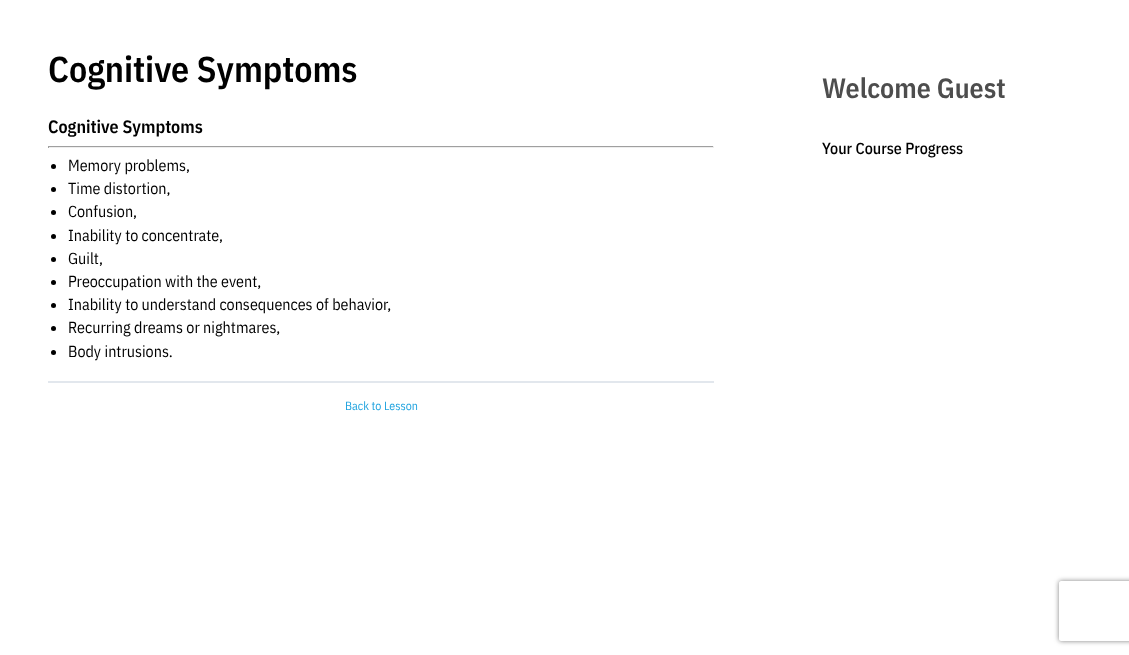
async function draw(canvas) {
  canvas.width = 1129;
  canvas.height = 655;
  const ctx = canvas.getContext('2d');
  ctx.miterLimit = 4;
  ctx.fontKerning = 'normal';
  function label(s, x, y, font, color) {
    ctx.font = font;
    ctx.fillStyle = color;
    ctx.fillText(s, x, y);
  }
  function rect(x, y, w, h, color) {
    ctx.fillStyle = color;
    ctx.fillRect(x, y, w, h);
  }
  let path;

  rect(0, 0, 1129, 655, '#fff');
  label('Cognitive Symptoms', 48, 82, '600 36px IBM Plex Sans Condensed', '#000');
  label('Cognitive Symptoms', 48, 133, '600 18px IBM Plex Sans Condensed', '#000');
  rect(48, 146, 666, 1, '#9f9f9f');
  rect(713, 146, 1, 2, '#eee');
  rect(48, 147, 666, 1, '#eee');
  rect(48, 146, 1, 2, '#9f9f9f');
  ctx.fillStyle = '#000';
  ctx.beginPath();
  ctx.arc(53.5, 166.5, 2.5, 0, 2 * Math.PI);
  ctx.fill();
  label('Memory problems,', 68, 171, '16px IBM Plex Sans Condensed', '#000');
  ctx.beginPath();
  ctx.arc(53.5, 189.5, 2.5, 0, 2 * Math.PI);
  ctx.fill();
  label('Time distortion,', 68, 194, '16px IBM Plex Sans Condensed', '#000');
  ctx.beginPath();
  ctx.arc(53.5, 212.5, 2.5, 0, 2 * Math.PI);
  ctx.fill();
  label('Confusion,', 68, 217, '16px IBM Plex Sans Condensed', '#000');
  ctx.beginPath();
  ctx.arc(53.5, 236.5, 2.5, 0, 2 * Math.PI);
  ctx.fill();
  label('Inability to concentrate,', 68, 241, '16px IBM Plex Sans Condensed', '#000');
  ctx.beginPath();
  ctx.arc(53.5, 259.5, 2.5, 0, 2 * Math.PI);
  ctx.fill();
  label('Guilt,', 68, 264, '16px IBM Plex Sans Condensed', '#000');
  ctx.beginPath();
  ctx.arc(53.5, 282.5, 2.5, 0, 2 * Math.PI);
  ctx.fill();
  label('Preoccupation with the event,', 68, 287, '16px IBM Plex Sans Condensed', '#000');
  ctx.beginPath();
  ctx.arc(53.5, 305.5, 2.5, 0, 2 * Math.PI);
  ctx.fill();
  label('Inability to understand consequences of behavior,', 68, 310, '16px IBM Plex Sans Condensed', '#000');
  ctx.beginPath();
  ctx.arc(53.5, 328.5, 2.5, 0, 2 * Math.PI);
  ctx.fill();
  label('Recurring dreams or nightmares,', 68, 333, '16px IBM Plex Sans Condensed', '#000');
  ctx.beginPath();
  ctx.arc(53.5, 352.5, 2.5, 0, 2 * Math.PI);
  ctx.fill();
  label('Body intrusions.', 68, 357, '16px IBM Plex Sans Condensed', '#000');
  rect(48, 381, 666, 2, '#e2e7ed');
  label('Back to Lesson', 345, 410, '12px IBM Plex Sans Condensed', '#20a3df');
  label('Welcome Guest', 822, 98, '600 28px IBM Plex Sans Condensed', '#4d4d4d');
  label('Your Course Progress', 822, 154, '500 16px IBM Plex Sans Condensed', '#000');
  ctx.save();
  path = new Path2D('M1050 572H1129V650H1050ZM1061 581H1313C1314 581 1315 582 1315 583V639C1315 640 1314 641 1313 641H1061C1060 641 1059 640 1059 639V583C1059 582 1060 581 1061 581Z');
  ctx.clip(path, 'evenodd');
  ctx.fillStyle = '#808080';
  ctx.filter = 'blur(2.5px)';
  ctx.beginPath();
  ctx.roundRect(1059, 581, 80, 60, 2);
  ctx.fill();
  ctx.filter = 'none';
  ctx.restore();
}

draw(document.querySelector('canvas'));
